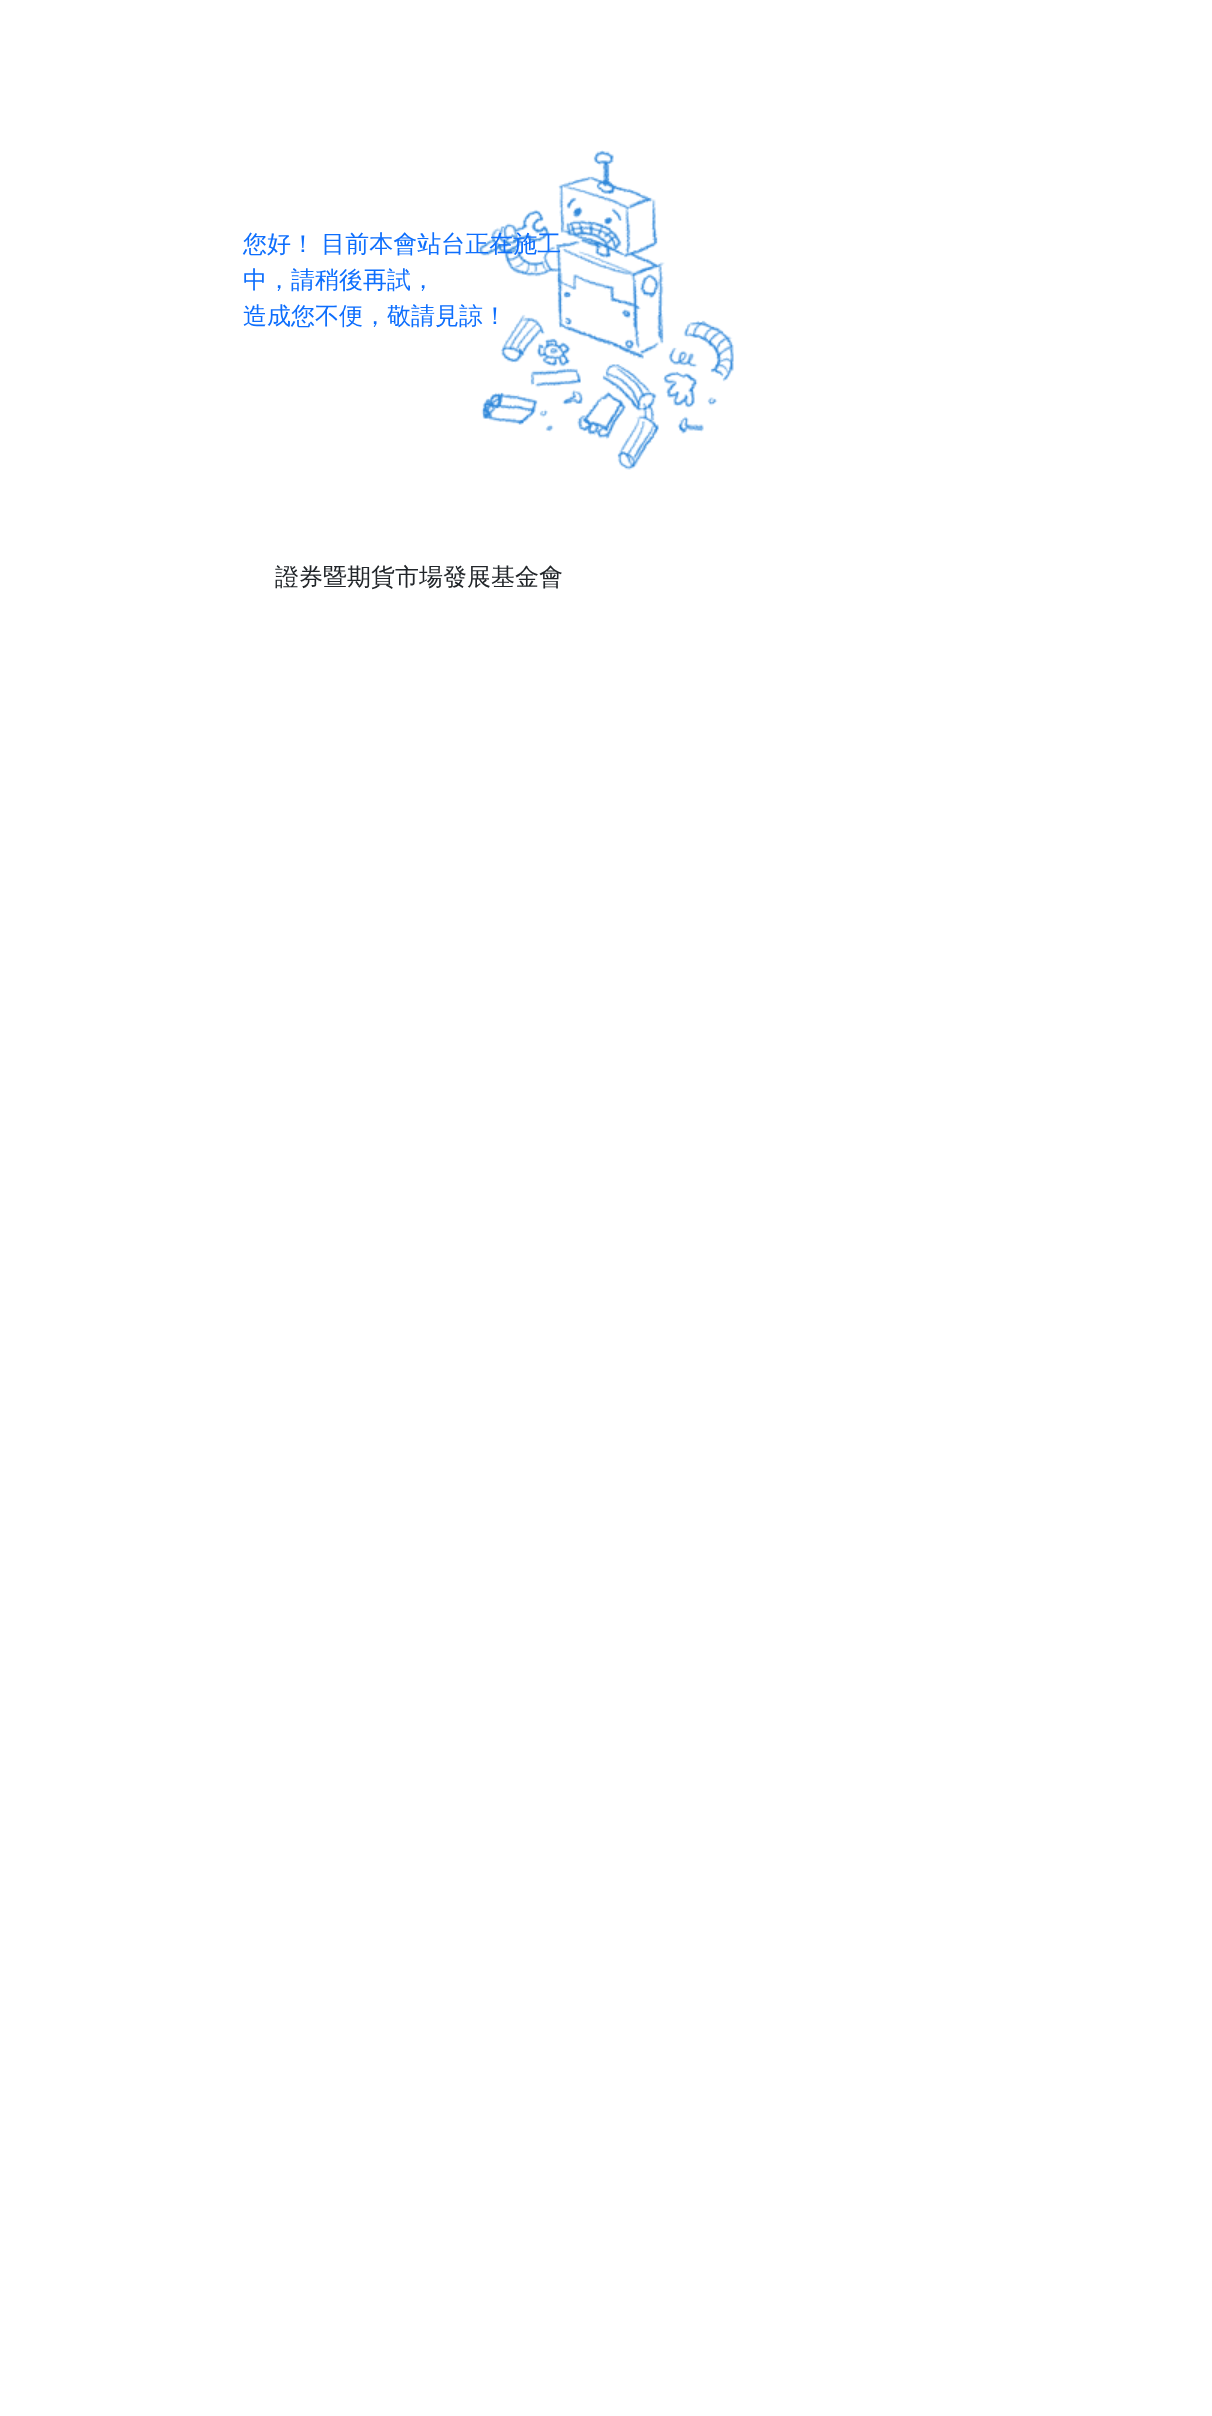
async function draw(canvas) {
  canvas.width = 1212;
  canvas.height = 2416;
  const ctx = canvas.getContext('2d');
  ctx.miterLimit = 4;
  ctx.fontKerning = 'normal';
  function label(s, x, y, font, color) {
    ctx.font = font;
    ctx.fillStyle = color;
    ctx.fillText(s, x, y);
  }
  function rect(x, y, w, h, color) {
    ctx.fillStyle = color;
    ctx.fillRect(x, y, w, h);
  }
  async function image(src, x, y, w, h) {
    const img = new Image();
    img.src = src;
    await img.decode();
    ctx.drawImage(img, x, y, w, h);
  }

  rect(0, 0, 1212, 2416, '#fff');
  await image('assets/img1.png', 478, 150, 256, 320);
  ctx.wordSpacing = '-1px';
  label('您好！ 目前本會站台正在施工', 243, 252, '500 24px WenQuanYi Zen Hei', '#0d6efd');
  ctx.wordSpacing = '0px';
  label('中，請稍後再試，', 243, 288, '500 24px WenQuanYi Zen Hei', '#0d6efd');
  label('造成您不便，敬請見諒！', 243, 324, '500 24px WenQuanYi Zen Hei', '#0d6efd');
  label('證券暨期貨市場發展基金會', 275, 585, '500 24px WenQuanYi Zen Hei', '#212529');
}

draw(document.querySelector('canvas'));
